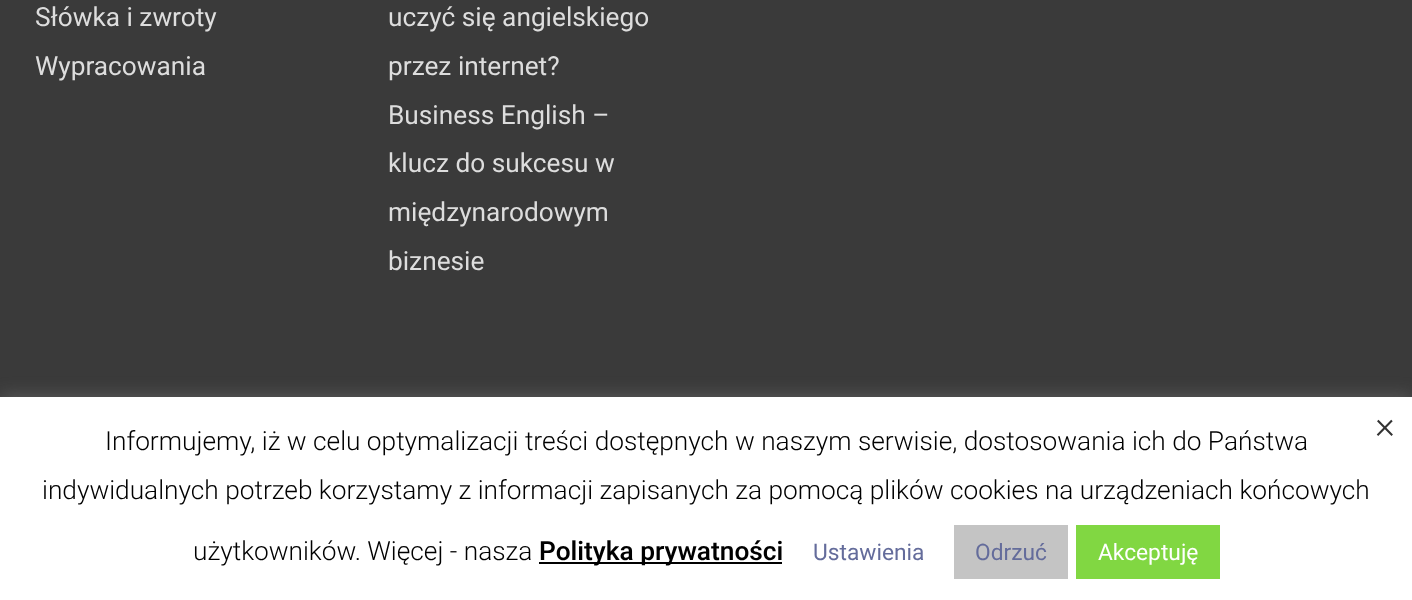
async function draw(canvas) {
  canvas.width = 1412;
  canvas.height = 600;
  const ctx = canvas.getContext('2d');
  ctx.miterLimit = 4;
  ctx.fontKerning = 'normal';
  function label(s, x, y, font, color) {
    ctx.font = font;
    ctx.fillStyle = color;
    ctx.fillText(s, x, y);
  }
  function rect(x, y, w, h, color) {
    ctx.fillStyle = color;
    ctx.fillRect(x, y, w, h);
  }

  rect(0, 0, 1412, 600, '#3a3a3a');
  label('Słówka i zwroty', 35, 26, '26.25px Roboto', '#ddd');
  label('Wypracowania', 35, 75, '26.25px Roboto', '#ddd');
  label('uczyć się angielskiego', 388, 26, '26.25px Roboto', '#ddd');
  label('przez internet?', 388, 75, '26.25px Roboto', '#ddd');
  label('Business English –', 388, 124, '26.25px Roboto', '#ddd');
  label('klucz do sukcesu w', 388, 172, '26.25px Roboto', '#ddd');
  label('międzynarodowym', 388, 221, '26.25px Roboto', '#ddd');
  label('biznesie', 388, 270, '26.25px Roboto', '#ddd');
  ctx.fillStyle = '#acabab4d';
  ctx.filter = 'blur(9px)';
  ctx.beginPath();
  ctx.rect(0, 396, 1412, 203);
  ctx.fill();
  ctx.filter = 'none';
  rect(0, 397, 1412, 203, '#fff');
  label('×', 1375, 438, '300 38px Roboto', '#333');
  label('Informujemy, iż w celu optymalizacji treści dostępnych w naszym serwisie, dostosowania ich do Państwa', 105, 450, '300 26.25px Roboto', '#000');
  label('indywidualnych potrzeb korzystamy z informacji zapisanych za pomocą plików cookies na urządzeniach końcowych', 42, 499, '300 26.25px Roboto', '#000');
  label('użytkowników. Więcej - nasza', 193, 560, '300 26.25px Roboto', '#000');
  rect(539, 562, 243, 2, '#000');
  label('Polityka prywatności', 539, 560, '500 26.25px Roboto', '#000');
  label('Ustawienia', 813, 560, '22.75px Roboto', '#646c9b');
  rect(954, 525, 114, 54, '#c4c4c4');
  label('Odrzuć', 975, 560, '22.75px Roboto', '#646c9b');
  rect(1076, 525, 144, 54, '#81d742');
  label('Akceptuję', 1098, 560, '22.75px Roboto', '#fff');
}

draw(document.querySelector('canvas'));
